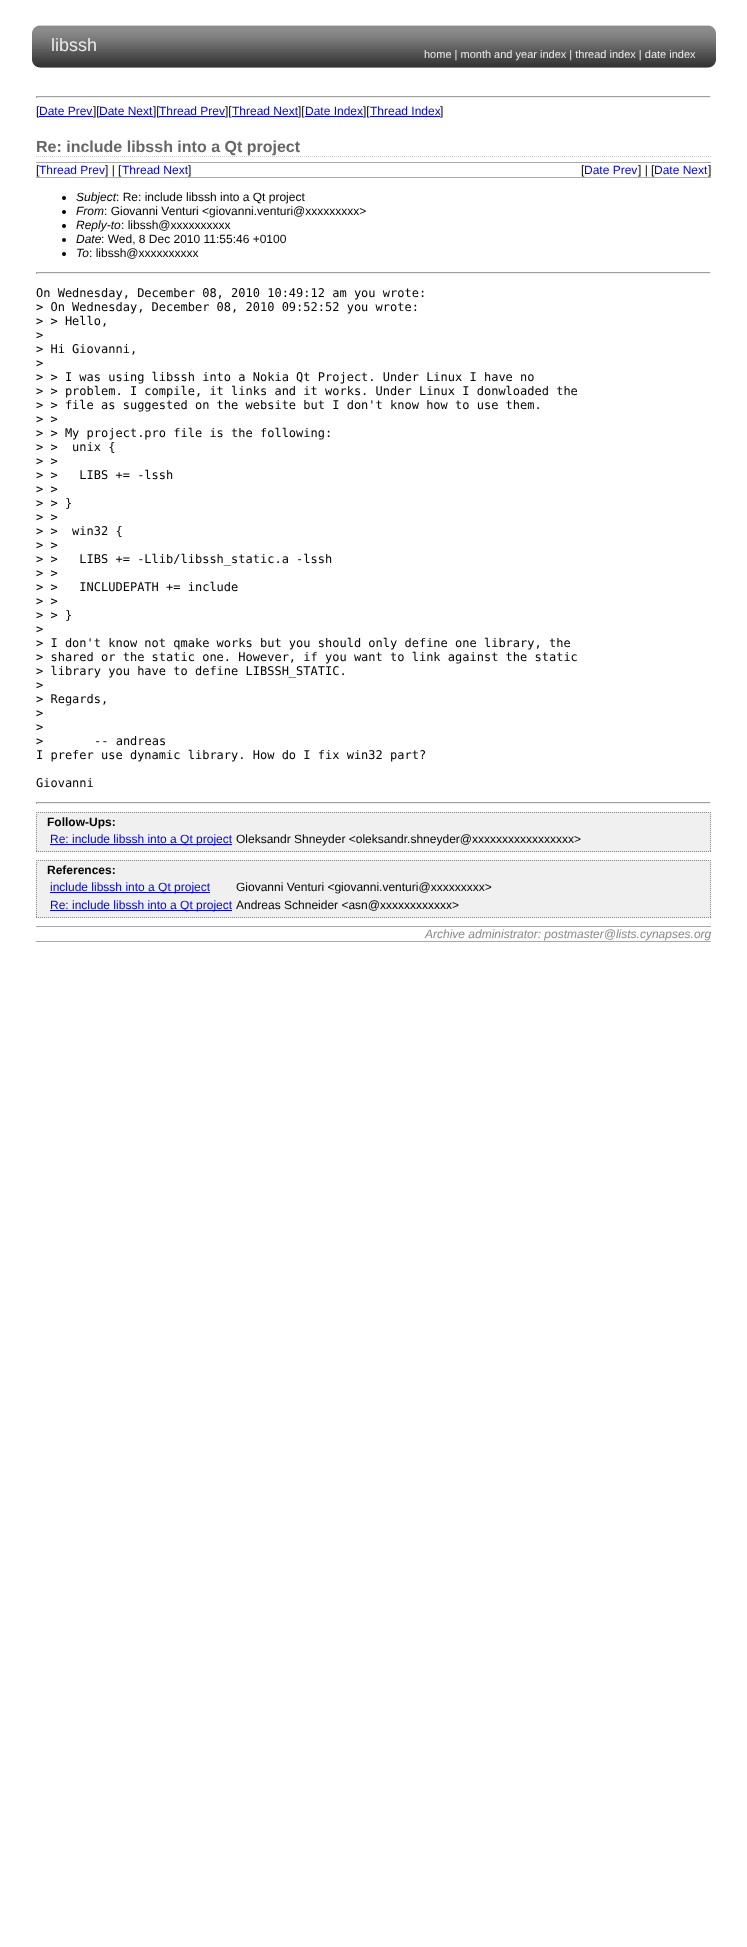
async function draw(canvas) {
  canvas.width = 747;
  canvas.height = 1947;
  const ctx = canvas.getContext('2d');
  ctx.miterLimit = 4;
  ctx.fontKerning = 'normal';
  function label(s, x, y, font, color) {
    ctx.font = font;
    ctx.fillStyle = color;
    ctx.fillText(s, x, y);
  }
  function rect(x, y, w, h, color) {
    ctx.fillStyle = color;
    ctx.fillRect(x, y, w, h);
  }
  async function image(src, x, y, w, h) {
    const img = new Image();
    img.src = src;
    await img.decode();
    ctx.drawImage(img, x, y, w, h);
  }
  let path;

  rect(0, 0, 747, 1947, '#fff');
  await image('assets/img1.png', 40, 25, 668, 43);
  await image('assets/img2.png', 31, 25, 9, 43);
  label('libssh', 51, 51, '18px Liberation Sans', '#ebebeb');
  await image('assets/img3.png', 708, 25, 8, 43);
  label('home | month and year index | thread index | date index', 424, 58, '11px Liberation Sans', '#ebebeb');
  rect(36, 96, 675, 1, '#9f9f9f');
  rect(710, 96, 1, 2, '#eee');
  rect(36, 97, 675, 1, '#eee');
  rect(36, 96, 1, 2, '#9f9f9f');
  label('[', 36, 115, '12px Liberation Sans', '#000');
  label('Date Prev', 39, 115, '12px Liberation Sans', '#00e');
  rect(39, 116, 54, 1, '#00e');
  label('][', 93, 115, '12px Liberation Sans', '#000');
  label('Date Next', 99, 115, '12px Liberation Sans', '#00e');
  rect(99, 116, 54, 1, '#00e');
  label('][', 153, 115, '12px Liberation Sans', '#000');
  label('Thread Prev', 159, 115, '12px Liberation Sans', '#00e');
  rect(159, 116, 66, 1, '#00e');
  label('][', 225, 115, '12px Liberation Sans', '#000');
  label('Thread Next', 232, 115, '12px Liberation Sans', '#00e');
  rect(232, 116, 66, 1, '#00e');
  label('][', 298, 115, '12px Liberation Sans', '#000');
  label('Date Index', 305, 115, '12px Liberation Sans', '#00e');
  rect(305, 116, 58, 1, '#00e');
  label('][', 363, 115, '12px Liberation Sans', '#000');
  label('Thread Index', 370, 115, '12px Liberation Sans', '#00e');
  rect(370, 116, 70, 1, '#00e');
  label(']', 440, 115, '12px Liberation Sans', '#000');
  path = new Path2D('M36 156.5H711');
  ctx.strokeStyle = '#ccc';
  ctx.setLineDash([1, 1]);
  ctx.stroke(path);
  label('Re: include libssh into a Qt project', 36, 152, 'bold 16px Liberation Sans', '#666');
  rect(36, 162, 675, 1, '#aaa');
  rect(36, 177, 675, 1, '#aaa');
  label('[', 36, 174, '12px Liberation Sans', '#000');
  label('Thread Prev', 39, 174, '12px Liberation Sans', '#00e');
  label('] | [', 105, 174, '12px Liberation Sans', '#000');
  label('Thread Next', 122, 174, '12px Liberation Sans', '#00e');
  label(']', 188, 174, '12px Liberation Sans', '#000');
  label('[', 581, 174, '12px Liberation Sans', '#000');
  label('Date Prev', 584, 174, '12px Liberation Sans', '#00e');
  label('] | [', 638, 174, '12px Liberation Sans', '#000');
  label('Date Next', 654, 174, '12px Liberation Sans', '#00e');
  label(']', 708, 174, '12px Liberation Sans', '#000');
  ctx.beginPath();
  ctx.arc(64, 198, 2, 0, 2 * Math.PI);
  ctx.fill();
  label('Subject', 76, 201, 'italic 12px Liberation Sans', '#000');
  label(': Re: include libssh into a Qt project', 116, 201, '12px Liberation Sans', '#000');
  ctx.beginPath();
  ctx.arc(64, 212, 2, 0, 2 * Math.PI);
  ctx.fill();
  label('From', 76, 215, 'italic 12px Liberation Sans', '#000');
  label(': Giovanni Venturi <giovanni.venturi@xxxxxxxxx>', 104, 215, '12px Liberation Sans', '#000');
  ctx.beginPath();
  ctx.arc(64, 226, 2, 0, 2 * Math.PI);
  ctx.fill();
  label('Reply-to', 76, 229, 'italic 12px Liberation Sans', '#000');
  label(': libssh@xxxxxxxxxx', 121, 229, '12px Liberation Sans', '#000');
  ctx.beginPath();
  ctx.arc(64, 240, 2, 0, 2 * Math.PI);
  ctx.fill();
  label('Date', 76, 243, 'italic 12px Liberation Sans', '#000');
  label(': Wed, 8 Dec 2010 11:55:46 +0100', 101, 243, '12px Liberation Sans', '#000');
  ctx.beginPath();
  ctx.arc(64, 254, 2, 0, 2 * Math.PI);
  ctx.fill();
  label('To', 76, 257, 'italic 12px Liberation Sans', '#000');
  label(': libssh@xxxxxxxxxx', 89, 257, '12px Liberation Sans', '#000');
  rect(36, 272, 675, 1, '#9f9f9f');
  rect(710, 272, 1, 2, '#eee');
  rect(36, 273, 675, 1, '#eee');
  rect(36, 272, 1, 2, '#9f9f9f');
  label('On Wednesday, December 08, 2010 10:49:12 am you wrote:', 36, 297, '12px DejaVu Sans Mono', '#000');
  label('> On Wednesday, December 08, 2010 09:52:52 you wrote:', 36, 311, '12px DejaVu Sans Mono', '#000');
  label('> > Hello,', 36, 325, '12px DejaVu Sans Mono', '#000');
  label('>', 36, 339, '12px DejaVu Sans Mono', '#000');
  label('> Hi Giovanni,', 36, 353, '12px DejaVu Sans Mono', '#000');
  label('>', 36, 367, '12px DejaVu Sans Mono', '#000');
  label('> > I was using libssh into a Nokia Qt Project. Under Linux I have no', 36, 381, '12px DejaVu Sans Mono', '#000');
  label('> > problem. I compile, it links and it works. Under Linux I donwloaded the', 36, 395, '12px DejaVu Sans Mono', '#000');
  label('> > file as suggested on the website but I don\'t know how to use them.', 36, 409, '12px DejaVu Sans Mono', '#000');
  label('> >', 36, 423, '12px DejaVu Sans Mono', '#000');
  label('> > My project.pro file is the following:', 36, 437, '12px DejaVu Sans Mono', '#000');
  label('> >  unix {', 36, 451, '12px DejaVu Sans Mono', '#000');
  label('> >', 36, 465, '12px DejaVu Sans Mono', '#000');
  label('> >   LIBS += -lssh', 36, 479, '12px DejaVu Sans Mono', '#000');
  label('> >', 36, 493, '12px DejaVu Sans Mono', '#000');
  label('> > }', 36, 507, '12px DejaVu Sans Mono', '#000');
  label('> >', 36, 521, '12px DejaVu Sans Mono', '#000');
  label('> >  win32 {', 36, 535, '12px DejaVu Sans Mono', '#000');
  label('> >', 36, 549, '12px DejaVu Sans Mono', '#000');
  label('> >   LIBS += -Llib/libssh_static.a -lssh', 36, 563, '12px DejaVu Sans Mono', '#000');
  label('> >', 36, 577, '12px DejaVu Sans Mono', '#000');
  label('> >   INCLUDEPATH += include', 36, 591, '12px DejaVu Sans Mono', '#000');
  label('> >', 36, 605, '12px DejaVu Sans Mono', '#000');
  label('> > }', 36, 619, '12px DejaVu Sans Mono', '#000');
  label('>', 36, 633, '12px DejaVu Sans Mono', '#000');
  label('> I don\'t know not qmake works but you should only define one library, the', 36, 647, '12px DejaVu Sans Mono', '#000');
  label('> shared or the static one. However, if you want to link against the static', 36, 661, '12px DejaVu Sans Mono', '#000');
  label('> library you have to define LIBSSH_STATIC.', 36, 675, '12px DejaVu Sans Mono', '#000');
  label('>', 36, 689, '12px DejaVu Sans Mono', '#000');
  label('> Regards,', 36, 703, '12px DejaVu Sans Mono', '#000');
  label('>', 36, 717, '12px DejaVu Sans Mono', '#000');
  label('>', 36, 731, '12px DejaVu Sans Mono', '#000');
  label('>', 36, 745, '12px DejaVu Sans Mono', '#000');
  label('-- andreas', 94, 745, '12px DejaVu Sans Mono', '#000');
  label('I prefer use dynamic library. How do I fix win32 part?', 36, 759, '12px DejaVu Sans Mono', '#000');
  label('Giovanni', 36, 787, '12px DejaVu Sans Mono', '#000');
  rect(36, 802, 675, 1, '#9f9f9f');
  rect(710, 802, 1, 2, '#eee');
  rect(36, 803, 675, 1, '#eee');
  rect(36, 802, 1, 2, '#9f9f9f');
  rect(36, 812, 675, 40, '#f0f0f0');
  path = new Path2D('M36 812.5H711');
  ctx.strokeStyle = '#888';
  ctx.stroke(path);
  path = new Path2D('M710.5 812V852');
  ctx.stroke(path);
  path = new Path2D('M36 851.5H711');
  ctx.stroke(path);
  path = new Path2D('M36.5 812V852');
  ctx.stroke(path);
  label('Follow-Ups:', 47, 826, 'bold 12px Liberation Sans', '#000');
  rect(50, 844, 182, 1, '#00e');
  label('Re: include libssh into a Qt project', 50, 843, '12px Liberation Sans', '#00e');
  label('Oleksandr Shneyder <oleksandr.shneyder@xxxxxxxxxxxxxxxxx>', 236, 843, '12px Liberation Sans', '#000');
  rect(36, 860, 675, 58, '#f0f0f0');
  path = new Path2D('M36 860.5H711');
  ctx.stroke(path);
  path = new Path2D('M710.5 860V918');
  ctx.stroke(path);
  path = new Path2D('M36 917.5H711');
  ctx.stroke(path);
  path = new Path2D('M36.5 860V918');
  ctx.stroke(path);
  label('References:', 47, 874, 'bold 12px Liberation Sans', '#000');
  rect(50, 892, 160, 1, '#00e');
  label('include libssh into a Qt project', 50, 891, '12px Liberation Sans', '#00e');
  label('Giovanni Venturi <giovanni.venturi@xxxxxxxxx>', 236, 891, '12px Liberation Sans', '#000');
  rect(50, 910, 182, 1, '#00e');
  label('Re: include libssh into a Qt project', 50, 909, '12px Liberation Sans', '#00e');
  label('Andreas Schneider <asn@xxxxxxxxxxxx>', 236, 909, '12px Liberation Sans', '#000');
  rect(36, 926, 675, 1, '#aaa');
  rect(36, 941, 675, 1, '#aaa');
  label('Archive administrator: postmaster@lists.cynapses.org', 425, 938, 'italic 12px Liberation Sans', '#888');
}

draw(document.querySelector('canvas'));
